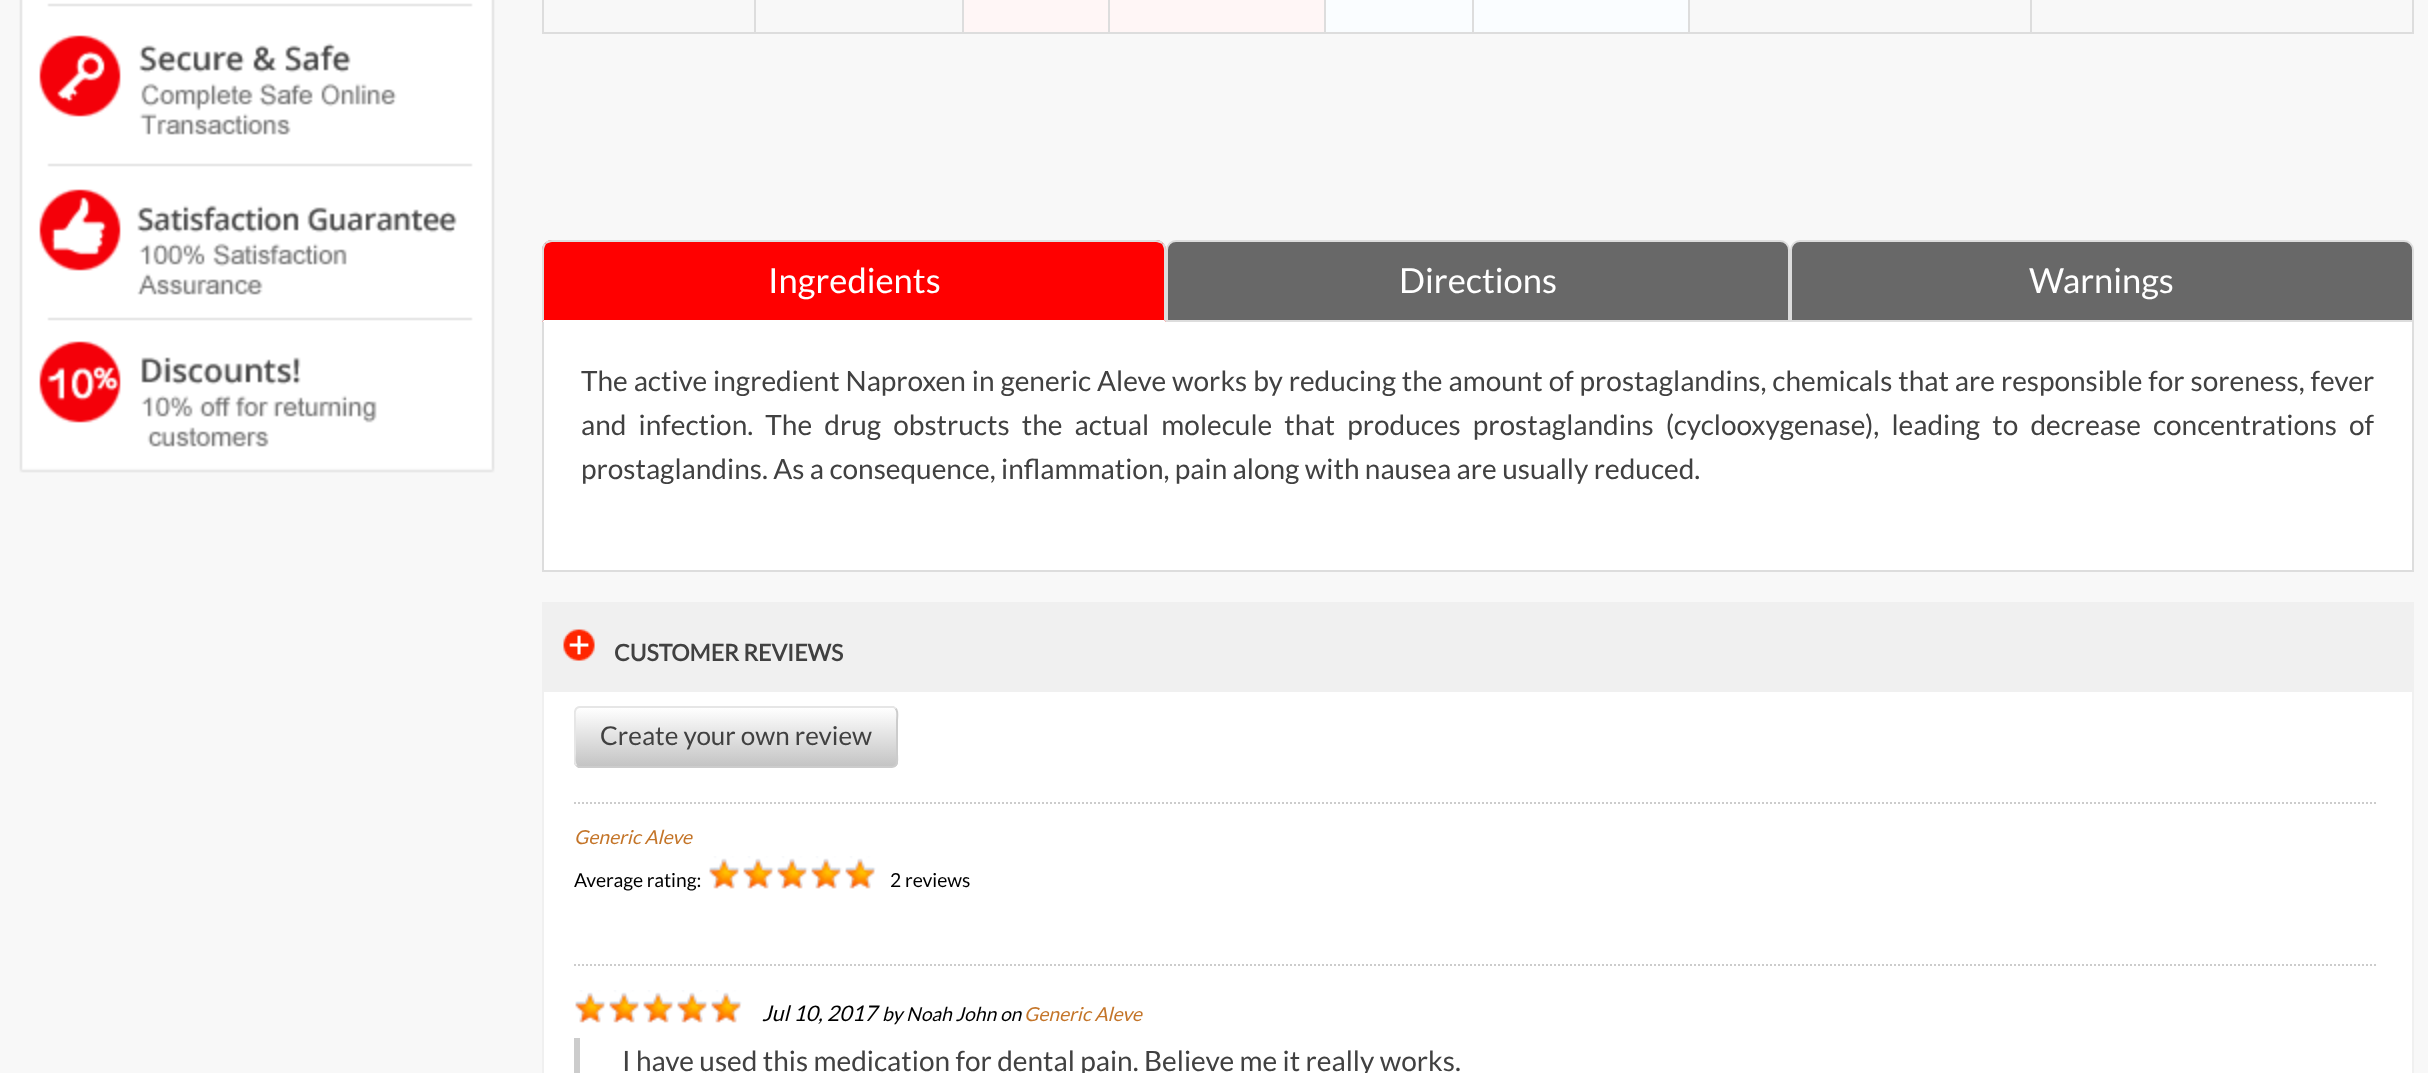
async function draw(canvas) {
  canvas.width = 2428;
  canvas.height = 1073;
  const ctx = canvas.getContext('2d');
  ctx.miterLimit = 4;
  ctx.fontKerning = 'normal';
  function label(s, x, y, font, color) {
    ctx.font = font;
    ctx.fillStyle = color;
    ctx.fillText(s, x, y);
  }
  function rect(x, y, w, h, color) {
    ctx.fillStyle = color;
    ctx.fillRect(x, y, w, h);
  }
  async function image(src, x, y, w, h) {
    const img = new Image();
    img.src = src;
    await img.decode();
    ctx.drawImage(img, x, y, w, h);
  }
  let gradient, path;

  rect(0, 0, 2428, 1073, '#f8f8f8');
  await image('assets/img1.png', 19, 0, 476, 473);
  rect(2412, 0, 2, 34, '#ddd');
  rect(542, 32, 1872, 2, '#ddd');
  rect(542, 0, 2, 34, '#ddd');
  rect(754, 0, 2, 34, '#ddd');
  rect(964, 0, 144, 32, '#fff6f6');
  rect(962, 0, 2, 34, '#ddd');
  rect(1110, 0, 214, 32, '#fff6f6');
  rect(1108, 0, 2, 34, '#ddd');
  rect(1326, 0, 146, 32, '#fafdff');
  rect(1324, 0, 2, 34, '#ddd');
  rect(1474, 0, 214, 32, '#fafdff');
  rect(1472, 0, 2, 34, '#ddd');
  rect(1688, 0, 2, 34, '#ddd');
  rect(2030, 0, 2, 34, '#ddd');
  ctx.fillStyle = '#f00';
  ctx.beginPath();
  ctx.roundRect(542, 240, 624, 82, [10, 10, 0, 0]);
  ctx.fill();
  ctx.fillStyle = '#ddd';
  path = new Path2D('M552 240C549 240 546 241 545 243L546 244C548 243 550 242 552 242H1156C1158 242 1160 243 1162 244L1163 243C1162 241 1159 240 1156 240Z');
  ctx.fill(path);
  path = new Path2D('M1166 322V250C1166 247 1165 244 1163 243L1162 244C1163 246 1164 248 1164 250V320Z');
  ctx.fill(path);
  ctx.fillStyle = '#fff';
  path = new Path2D('M1166 322L1164 320H544L542 322Z');
  ctx.fill(path);
  ctx.fillStyle = '#ddd';
  path = new Path2D('M542 322L544 320V250C544 248 545 246 546 244L545 243C543 244 542 247 542 250Z');
  ctx.fill(path);
  label('Ingredients', 768, 293, '34.5px Lato', '#fff');
  ctx.fillStyle = '#686868';
  ctx.beginPath();
  ctx.roundRect(1167, 241, 622, 80, [9, 9, 0, 0]);
  ctx.fill();
  ctx.strokeStyle = '#ddd';
  ctx.lineWidth = 2;
  ctx.stroke();
  label('Directions', 1399, 293, '34.5px Lato', '#fff');
  ctx.fillStyle = '#686868';
  ctx.beginPath();
  ctx.roundRect(1791, 241, 622, 80, [9, 9, 0, 0]);
  ctx.fill();
  ctx.stroke();
  label('Warnings', 2029, 293, '34.5px Lato', '#fff');
  rect(544, 322, 1868, 248, '#fff');
  rect(2412, 322, 2, 250, '#ddd');
  rect(542, 570, 1872, 2, '#ddd');
  rect(542, 322, 2, 250, '#ddd');
  ctx.wordSpacing = '0.5px';
  label('The active ingredient Naproxen in generic Aleve works by reducing the amount of prostaglandins, chemicals that are responsible for soreness, fever', 581, 391, '28px Lato', '#414141');
  ctx.wordSpacing = '6.75px';
  label('and infection. The drug obstructs the actual molecule that produces prostaglandins (cyclooxygenase), leading to decrease concentrations of', 581, 435, '28px Lato', '#414141');
  ctx.wordSpacing = '0px';
  label('prostaglandins. As a consequence, inflammation, pain along with nausea are usually reduced.', 581, 479, '28px Lato', '#414141');
  rect(544, 692, 1868, 381, '#fff');
  ctx.strokeStyle = '#f0f0f0';
  ctx.strokeRect(543, 603, 1870, 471);
  rect(544, 604, 1868, 88, '#f0f0f0');
  await image('assets/img2.png', 563, 629, 32, 32);
  label('CUSTOMER REVIEWS', 614, 661, 'bold 23px Lato', '#414141');
  ctx.save();
  ctx.beginPath();
  ctx.roundRect(574, 706, 324, 62, 6);
  ctx.clip();
  gradient = ctx.createLinearGradient(736, 708, 736, 766);
  gradient.addColorStop(0, '#fff');
  gradient.addColorStop(1, '#c4c4c4');
  ctx.fillStyle = gradient;
  ctx.fillRect(574, 708, 324, 58);
  ctx.restore();
  path = new Path2D('M895.5 708.5C898.5 711 897 718 897 720.5V753.5C897 757.5 899 767 892 767H578.5L576.5 765.5');
  ctx.strokeStyle = '#ccc';
  ctx.stroke(path);
  ctx.save();
  ctx.beginPath();
  ctx.rect(574, 692, 1804, 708);
  ctx.clip();
  path = new Path2D('M576.5 765.5C573.5 763 575 756 575 753.5V720.5C575 716.5 573 707 580 707H893.5L895.5 708.5');
  ctx.strokeStyle = '#e6e6e6';
  ctx.stroke(path);
  ctx.restore();
  label('Create your own review', 600, 745, '26px Lato', '#414141');
  path = new Path2D('M574 803H2378');
  ctx.setLineDash([2, 2]);
  ctx.stroke(path);
  label('Generic Aleve', 574, 844, 'italic 19.25px Lato', '#c47529');
  label('Average rating:', 574, 887, '19.25px Lato', '#000');
  await image('assets/img3.png', 709, 858, 167, 30);
  await image('assets/img4.png', 709, 856, 166, 33);
  label('2 reviews', 890, 887, '19.25px Lato', '#000');
  path = new Path2D('M574 965H2378');
  ctx.stroke(path);
  await image('assets/img3.png', 575, 992, 167, 30);
  await image('assets/img4.png', 575, 990, 166, 33);
  label('Jul 10, 2017', 762, 1021, 'italic 21.5px Lato', '#000');
  label('by Noah John on', 882, 1021, 'italic 19.25px Lato', '#000');
  label('Generic Aleve', 1024, 1021, 'italic 19.25px Lato', '#c47529');
  rect(574, 1038, 6, 35, '#ccc');
  label('I have used this medication for dental pain. Believe me it really works.', 622, 1071, '28px Lato', '#414141');
}

draw(document.querySelector('canvas'));
